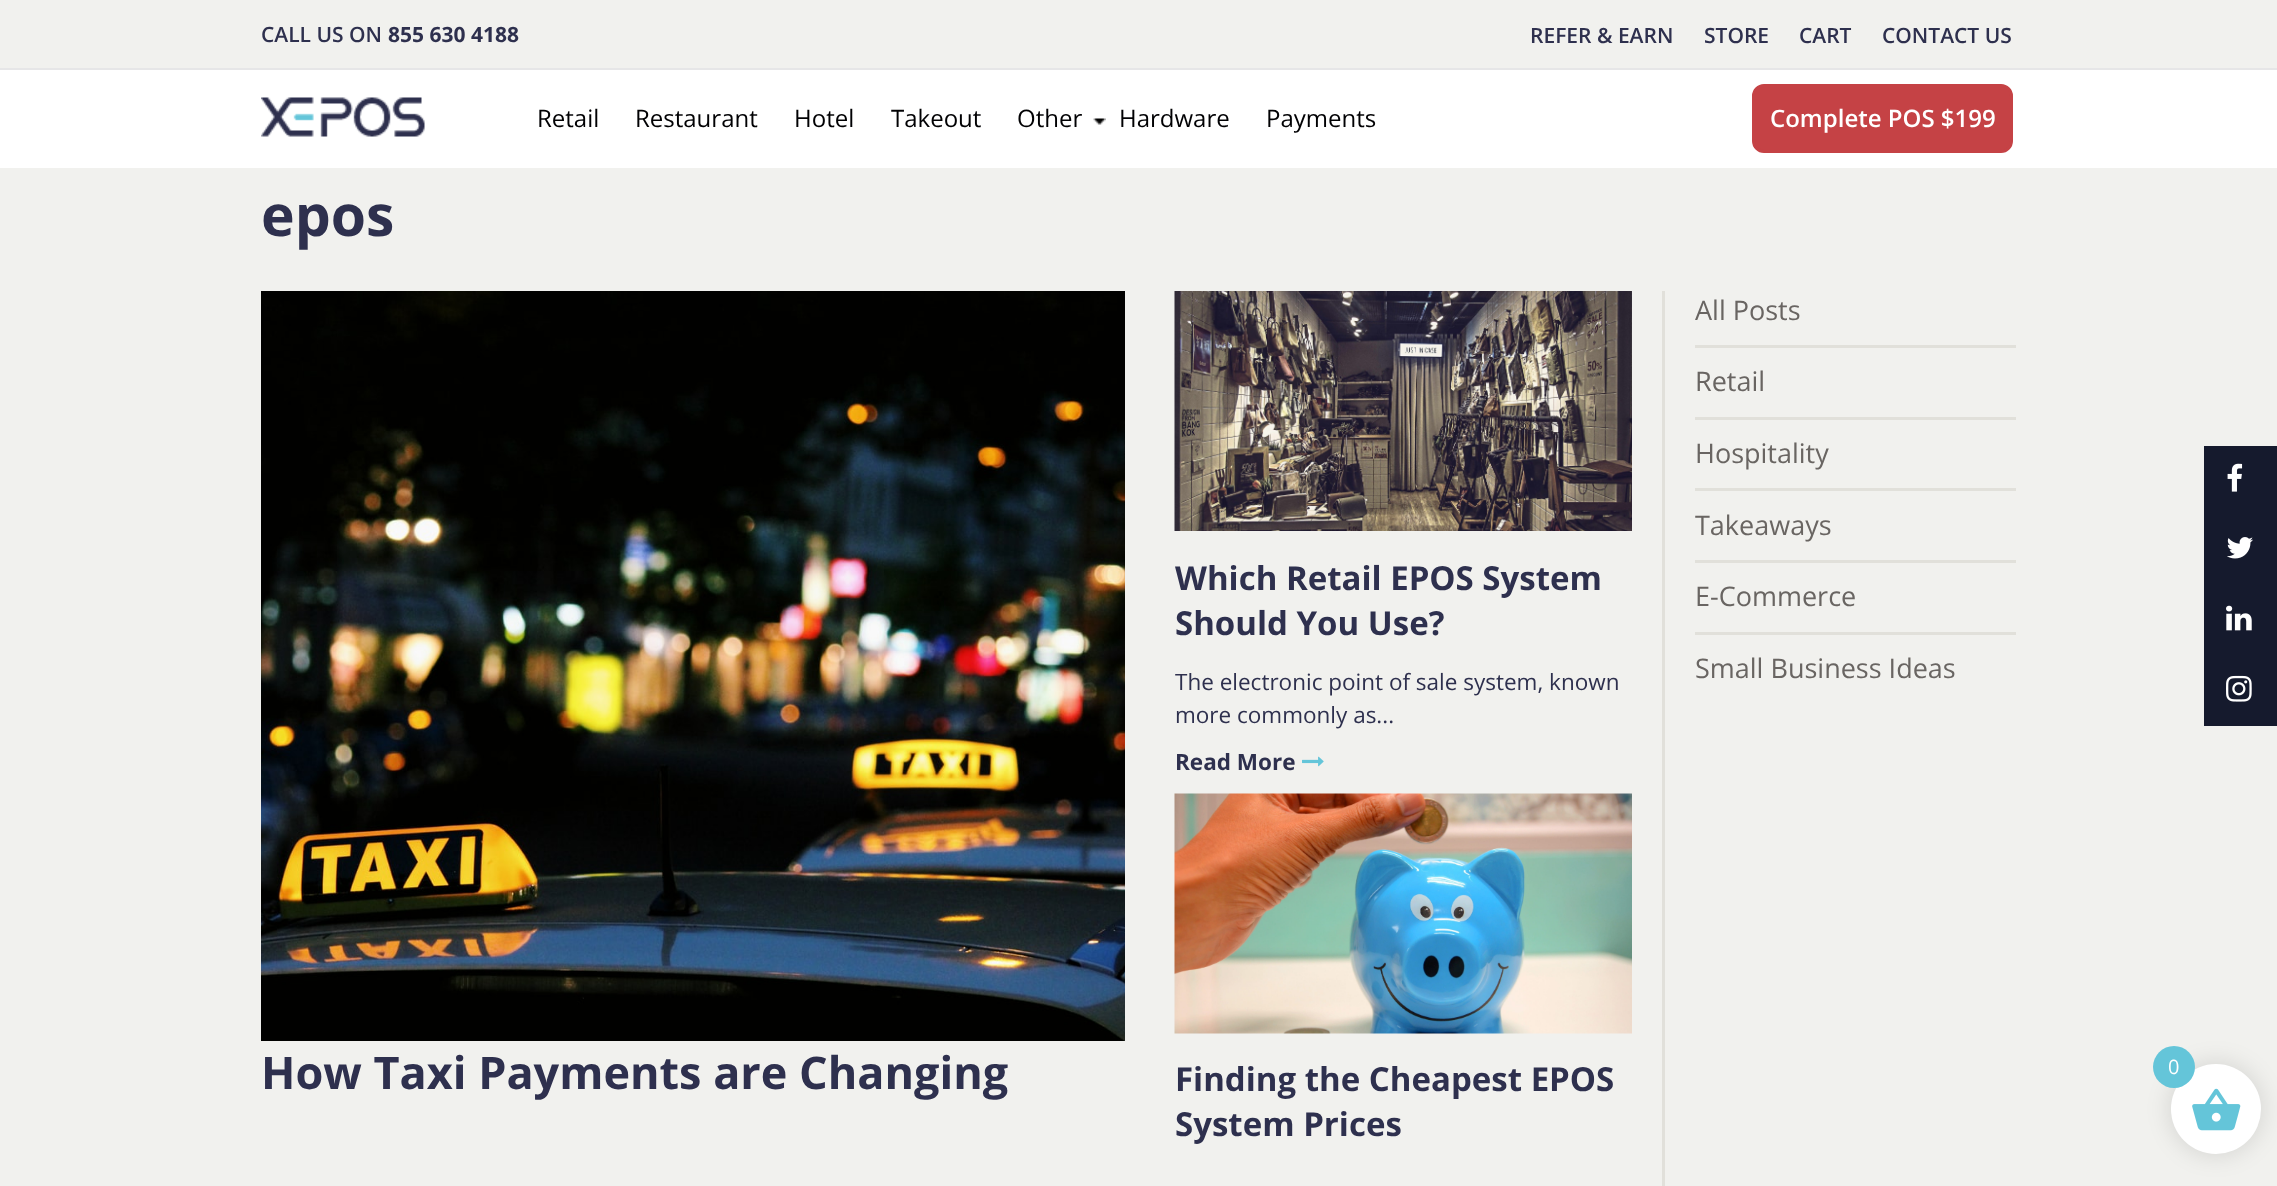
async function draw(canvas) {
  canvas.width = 2277;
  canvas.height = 1186;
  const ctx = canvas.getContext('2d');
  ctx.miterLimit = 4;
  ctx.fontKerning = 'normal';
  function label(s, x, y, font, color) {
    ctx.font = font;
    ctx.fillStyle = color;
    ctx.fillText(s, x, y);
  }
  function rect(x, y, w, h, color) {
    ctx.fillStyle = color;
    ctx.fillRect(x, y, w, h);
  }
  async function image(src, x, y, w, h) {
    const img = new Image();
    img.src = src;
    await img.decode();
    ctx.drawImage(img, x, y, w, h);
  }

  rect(0, 0, 2277, 1186, '#f1f1ee');
  rect(0, 70, 2277, 98, '#fff');
  rect(0, 68, 2277, 2, '#e6e6e7');
  label('CALL US ON', 261, 42, '600 21px Open Sans', '#2e304e');
  label('855 630 4188', 388, 42, 'bold 21px Open Sans', '#2e304e');
  label('REFER & EARN', 1530, 43, '600 21px Open Sans', '#2e304e');
  label('STORE', 1704, 43, '600 21px Open Sans', '#2e304e');
  label('CART', 1799, 43, '600 21px Open Sans', '#2e304e');
  label('CONTACT US', 1882, 43, '600 21px Open Sans', '#2e304e');
  await image('assets/img1.png', 261, 97, 164, 40);
  label('Retail', 537, 127, '24px Open Sans', '#010103');
  label('Restaurant', 635, 127, '24px Open Sans', '#010103');
  label('Hotel', 794, 127, '24px Open Sans', '#010103');
  label('Takeout', 891, 127, '24px Open Sans', '#010103');
  label('Other', 1017, 127, '24px Open Sans', '#010103');
  await image('assets/img2.png', 1093, 118, 13, 7);
  label('Hardware', 1119, 127, '24px Open Sans', '#010103');
  label('Payments', 1266, 127, '24px Open Sans', '#010103');
  ctx.fillStyle = '#c54245';
  ctx.beginPath();
  ctx.roundRect(1753.5, 85.5, 258, 66, 10.5);
  ctx.fill();
  ctx.strokeStyle = '#c54245';
  ctx.lineWidth = 3;
  ctx.stroke();
  label('Complete POS $199', 1770, 127, '600 24px Open Sans', '#fff');
  label('epos', 261, 236, 'bold 57px Open Sans', '#2e304e');
  rect(1695, 345, 321, 3, '#e1e0da');
  label('All Posts', 1695, 320, '27px Open Sans', '#696562');
  rect(1695, 417, 321, 3, '#e1e0da');
  label('Retail', 1695, 391, '27px Open Sans', '#696562');
  rect(1695, 488, 321, 3, '#e1e0da');
  label('Hospitality', 1695, 463, '27px Open Sans', '#696562');
  rect(1695, 560, 321, 3, '#e1e0da');
  label('Takeaways', 1695, 535, '27px Open Sans', '#696562');
  rect(1695, 632, 321, 3, '#e1e0da');
  label('E-Commerce', 1695, 606, '27px Open Sans', '#696562');
  label('Small Business Ideas', 1695, 678, '27px Open Sans', '#696562');
  rect(1662, 291, 3, 895, '#e1e0da');
  await image('assets/img3.png', 1174, 291, 458, 240);
  label('Which Retail EPOS System', 1175, 590, 'bold 33px Open Sans', '#2e304e');
  label('Should You Use?', 1175, 635, 'bold 33px Open Sans', '#2e304e');
  label('The electronic point of sale system, known', 1175, 690, '22.5px Open Sans', '#2e304e');
  label('more commonly as...', 1175, 723, '22.5px Open Sans', '#2e304e');
  label('Read More', 1175, 770, 'bold 22.5px Open Sans', '#2e304e');
  await image('assets/img4.png', 1302, 756, 22, 11);
  await image('assets/img5.png', 261, 291, 864, 750);
  label('How Taxi Payments are Changing', 261, 1089, 'bold 45px Open Sans', '#2e304e');
  await image('assets/img6.png', 1174, 793, 458, 241);
  label('Finding the Cheapest EPOS', 1175, 1091, 'bold 33px Open Sans', '#2e304e');
  label('System Prices', 1175, 1136, 'bold 33px Open Sans', '#2e304e');
  rect(2204, 446, 73, 280, '#151a2d');
  await image('assets/img7.png', 2227, 463, 16, 29);
  await image('assets/img8.png', 2227, 537, 26, 22);
  await image('assets/img9.png', 2226, 605, 26, 26);
  await image('assets/img10.png', 2226, 675, 26, 27);
  ctx.fillStyle = '#0000001a';
  ctx.filter = 'blur(11px)';
  ctx.beginPath();
  ctx.roundRect(2168, 1061, 96, 96, 48);
  ctx.fill();
  ctx.filter = 'none';
  ctx.fillStyle = '#fff';
  ctx.beginPath();
  ctx.arc(2216, 1109, 45, 0, 2 * Math.PI);
  ctx.fill();
  ctx.fillStyle = '#64c5d9';
  ctx.beginPath();
  ctx.arc(2174, 1067, 21, 0, 2 * Math.PI);
  ctx.fill();
  label('0', 2168, 1074, '20px Open Sans', '#fff');
  await image('assets/img11.png', 2192, 1088, 49, 43);
}

draw(document.querySelector('canvas'));
